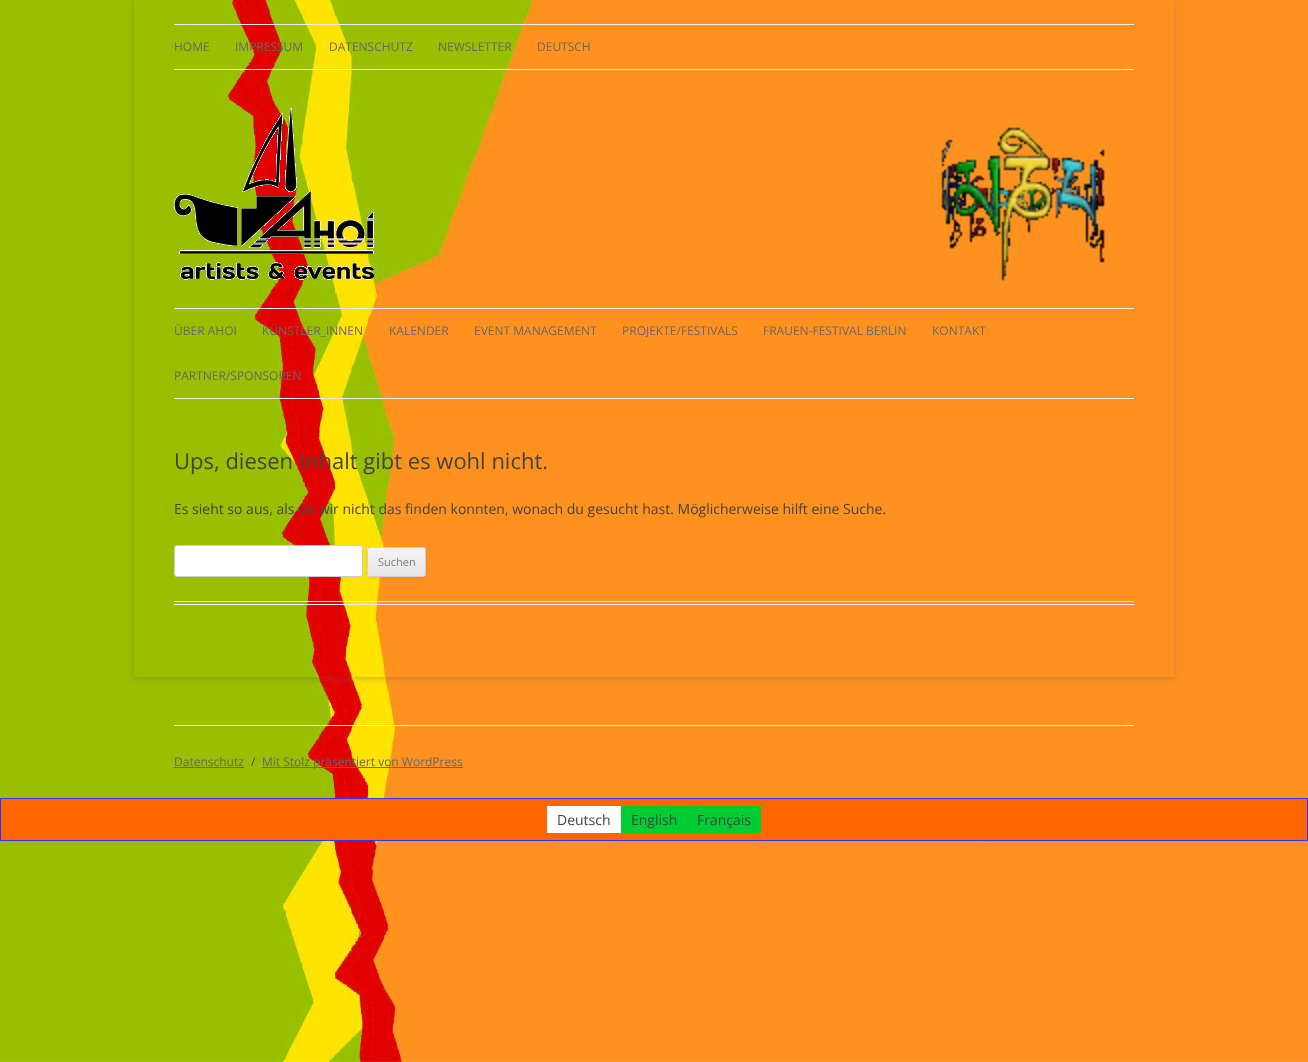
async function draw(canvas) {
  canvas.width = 1308;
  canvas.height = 1062;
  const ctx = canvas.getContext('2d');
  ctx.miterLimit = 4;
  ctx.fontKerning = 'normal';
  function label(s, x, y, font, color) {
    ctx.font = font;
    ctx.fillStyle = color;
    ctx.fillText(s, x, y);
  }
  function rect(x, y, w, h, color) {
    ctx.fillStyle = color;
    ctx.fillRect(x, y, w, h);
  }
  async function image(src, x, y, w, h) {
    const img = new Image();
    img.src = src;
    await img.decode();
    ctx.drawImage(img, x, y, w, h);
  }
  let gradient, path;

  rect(0, 0, 1308, 1062, '#fff');
  await image('assets/img1.png', 0, 0, 1308, 1062);
  ctx.save();
  path = new Path2D('M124 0H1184V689H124ZM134 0H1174V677H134Z');
  ctx.clip(path, 'evenodd');
  ctx.fillStyle = '#6464644d';
  ctx.filter = 'blur(3px)';
  ctx.beginPath();
  ctx.rect(134, 2, 1040, 677);
  ctx.fill();
  ctx.filter = 'none';
  ctx.restore();
  rect(174, 24, 960, 1, '#ededed');
  rect(174, 69, 960, 1, '#ededed');
  label('HOME', 174, 51, '12px Open Sans', '#686868');
  label('IMPRESSUM', 235, 51, '12px Open Sans', '#686868');
  label('DATENSCHUTZ', 329, 51, '12px Open Sans', '#686868');
  label('NEWSLETTER', 438, 51, '12px Open Sans', '#686868');
  label('DEUTSCH', 537, 51, '12px Open Sans', '#686868');
  await image('assets/img2.png', 174, 108, 200, 172);
  await image('assets/img3.png', 941, 127, 164, 154);
  rect(174, 308, 960, 1, '#ededed');
  rect(174, 398, 960, 1, '#ededed');
  label('ÜBER AHOI', 174, 335, '12px Open Sans', '#686868');
  label('KÜNSTLER_INNEN', 262, 335, '12px Open Sans', '#686868');
  label('KALENDER', 389, 335, '12px Open Sans', '#686868');
  label('EVENT MANAGEMENT', 474, 335, '12px Open Sans', '#686868');
  label('PROJEKTE/FESTIVALS', 622, 335, '12px Open Sans', '#686868');
  label('FRAUEN-FESTIVAL BERLIN', 763, 335, '12px Open Sans', '#686868');
  label('KONTAKT', 932, 335, '12px Open Sans', '#686868');
  label('PARTNER/SPONSOREN', 174, 380, '12px Open Sans', '#686868');
  rect(174, 601, 960, 1, '#ededed');
  rect(174, 604, 960, 1, '#ededed');
  label('Ups, diesen Inhalt gibt es wohl nicht.', 174, 469, '22px Open Sans', '#444');
  label('Es sieht so aus, als ob wir nicht das finden konnten, wonach du gesucht hast. Möglicherweise hilft eine Suche.', 174, 514, '14px Open Sans', '#444');
  ctx.fillStyle = '#fff';
  ctx.beginPath();
  ctx.roundRect(174.5, 545.5, 188, 31, 2.5);
  ctx.fill();
  ctx.strokeStyle = '#ccc';
  ctx.stroke();
  ctx.fillStyle = '#4040401a';
  ctx.filter = 'blur(1px)';
  ctx.beginPath();
  ctx.roundRect(367, 548, 59, 30, 3);
  ctx.fill();
  ctx.filter = 'none';
  ctx.save();
  ctx.beginPath();
  ctx.roundRect(367, 547, 59, 30, 3);
  ctx.clip();
  gradient = ctx.createLinearGradient(397, 548, 397, 576);
  gradient.addColorStop(0, '#f4f4f4');
  gradient.addColorStop(1, '#e6e6e6');
  ctx.fillStyle = gradient;
  ctx.fillRect(367, 548, 59, 28);
  ctx.restore();
  ctx.beginPath();
  ctx.roundRect(367.5, 547.5, 58, 29, 2.5);
  ctx.strokeStyle = '#d2d2d2';
  ctx.stroke();
  label('Suchen', 378, 566, '11px Open Sans', '#7c7c7c');
  rect(174, 725, 960, 1, '#ededed');
  label('Datenschutz', 174, 766, '12px Open Sans', '#686868');
  rect(174, 767, 70, 1, '#686868');
  label('/', 251, 766, '12px Open Sans', '#444');
  rect(262, 767, 201, 1, '#686868');
  label('Mit Stolz präsentiert von WordPress', 262, 766, '12px Open Sans', '#686868');
  ctx.fillStyle = '#f60';
  ctx.beginPath();
  ctx.rect(0.5, 798.5, 1307, 42);
  ctx.fill();
  ctx.strokeStyle = '#33f';
  ctx.stroke();
  rect(547, 806, 74, 27, '#fff');
  label('Deutsch', 557, 825, '14px Open Sans', '#444');
  rect(621, 806, 140, 27, '#0c3');
  label('English', 631, 825, '14px Open Sans', '#444');
  label('Français', 697, 825, '14px Open Sans', '#444');
}

draw(document.querySelector('canvas'));
